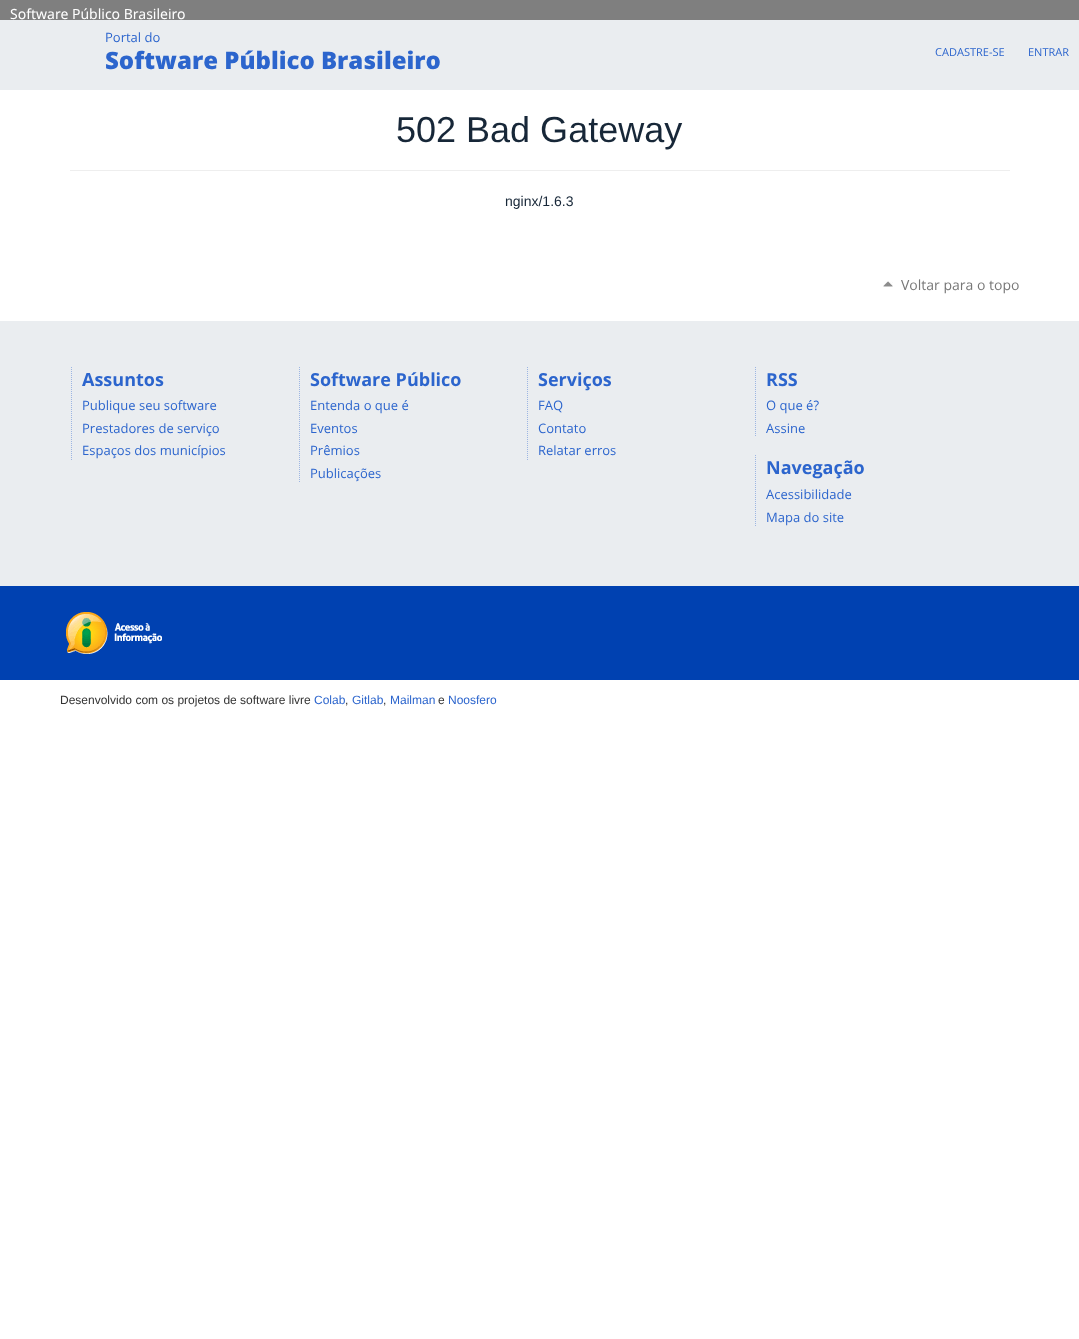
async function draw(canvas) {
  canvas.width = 1079;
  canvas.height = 1339;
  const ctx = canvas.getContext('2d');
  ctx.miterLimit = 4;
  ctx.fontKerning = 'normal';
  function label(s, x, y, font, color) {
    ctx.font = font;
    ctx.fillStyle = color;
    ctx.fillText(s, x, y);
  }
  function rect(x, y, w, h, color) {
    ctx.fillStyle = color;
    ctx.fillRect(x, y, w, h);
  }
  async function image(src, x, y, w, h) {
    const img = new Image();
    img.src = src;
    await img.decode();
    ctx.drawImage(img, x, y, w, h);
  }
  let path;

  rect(0, 0, 1079, 1339, '#fff');
  rect(0, 0, 1079, 20, '#7f7f7f');
  label('Software Público Brasileiro', 10, 19, '14px Noto Sans', '#fff');
  rect(0, 20, 1079, 70, '#eaedf0');
  label('Portal do', 105, 42, '13px Open Sans', '#2c65cd');
  label('Software Público Brasileiro', 105, 69, '800 24px Open Sans', '#2c65cd');
  label('CADASTRE-SE', 935, 56, '11px Open Sans', '#2c65cd');
  label('ENTRAR', 1028, 56, '11px Open Sans', '#2c65cd');
  label('502 Bad Gateway', 396, 142, '36px Liberation Sans', '#172738');
  rect(70, 170, 940, 1, '#eee');
  label('nginx/1.6.3', 505, 206, '14px Liberation Sans', '#172738');
  await image('assets/img1.png', 883, 281, 10, 6);
  label('Voltar para o topo', 901, 290, '14px Open Sans', '#777');
  rect(0, 321, 1079, 265, '#eaedf0');
  path = new Path2D('M71.5 367V460');
  ctx.strokeStyle = '#9cb5e2';
  ctx.setLineDash([1, 1]);
  ctx.stroke(path);
  label('Assuntos', 82, 386, 'bold 18px Open Sans', '#2c65cd');
  label('Publique seu software', 82, 410, '13px Open Sans', '#2c65cd');
  label('Prestadores de serviço', 82, 433, '13px Open Sans', '#2c65cd');
  label('Espaços dos municípios', 82, 455, '13px Open Sans', '#2c65cd');
  path = new Path2D('M299.5 367V483');
  ctx.stroke(path);
  label('Software Público', 310, 386, 'bold 18px Open Sans', '#2c65cd');
  label('Entenda o que é', 310, 410, '13px Open Sans', '#2c65cd');
  label('Eventos', 310, 433, '13px Open Sans', '#2c65cd');
  label('Prêmios', 310, 455, '13px Open Sans', '#2c65cd');
  label('Publicações', 310, 478, '13px Open Sans', '#2c65cd');
  path = new Path2D('M527.5 367V460');
  ctx.stroke(path);
  label('Serviços', 538, 386, 'bold 18px Open Sans', '#2c65cd');
  label('FAQ', 538, 410, '13px Open Sans', '#2c65cd');
  label('Contato', 538, 433, '13px Open Sans', '#2c65cd');
  label('Relatar erros', 538, 455, '13px Open Sans', '#2c65cd');
  path = new Path2D('M755.5 367V437');
  ctx.stroke(path);
  label('RSS', 766, 386, 'bold 18px Open Sans', '#2c65cd');
  label('O que é?', 766, 410, '13px Open Sans', '#2c65cd');
  label('Assine', 766, 433, '13px Open Sans', '#2c65cd');
  path = new Path2D('M755.5 455V526');
  ctx.stroke(path);
  label('Navegação', 766, 474, 'bold 18px Open Sans', '#2c65cd');
  label('Acessibilidade', 766, 499, '13px Open Sans', '#2c65cd');
  label('Mapa do site', 766, 522, '13px Open Sans', '#2c65cd');
  rect(0, 586, 1079, 94, '#0041b1');
  await image('assets/img2.png', 66, 612, 96, 42);
  label('Desenvolvido com os projetos de software livre', 60, 704, '12px Liberation Sans', '#333');
  label('Colab', 314, 704, '12px Liberation Sans', '#2c65cd');
  label(',', 345, 704, '12px Liberation Sans', '#333');
  label('Gitlab', 352, 704, '12px Liberation Sans', '#2c65cd');
  label(',', 383, 704, '12px Liberation Sans', '#333');
  label('Mailman', 390, 704, '12px Liberation Sans', '#2c65cd');
  label('e', 438, 704, '12px Liberation Sans', '#333');
  label('Noosfero', 448, 704, '12px Liberation Sans', '#2c65cd');
}

draw(document.querySelector('canvas'));
